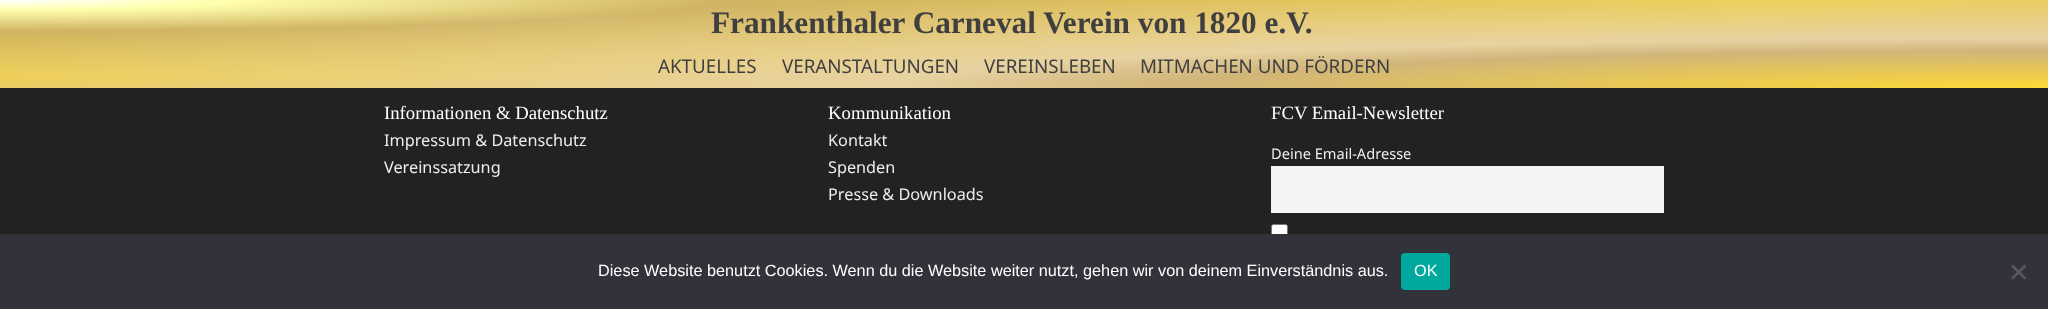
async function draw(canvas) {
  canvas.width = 2048;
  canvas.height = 309;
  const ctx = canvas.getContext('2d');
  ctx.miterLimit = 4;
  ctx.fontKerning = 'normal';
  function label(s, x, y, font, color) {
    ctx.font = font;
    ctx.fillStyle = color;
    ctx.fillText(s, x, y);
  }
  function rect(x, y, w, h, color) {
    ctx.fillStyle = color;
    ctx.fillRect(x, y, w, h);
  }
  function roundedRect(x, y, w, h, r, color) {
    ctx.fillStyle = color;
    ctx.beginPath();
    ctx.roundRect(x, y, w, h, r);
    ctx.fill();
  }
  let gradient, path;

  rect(0, 0, 2048, 309, '#222');
  gradient = ctx.createRadialGradient(0, 0, 0, 0, 0, 2897);
  gradient.addColorStop(0, '#fff');
  gradient.addColorStop(0.08, '#ffffac');
  gradient.addColorStop(0.25, '#d1b464');
  gradient.addColorStop(0.62, '#f1cf46');
  gradient.addColorStop(1, '#dabc79');
  ctx.fillStyle = gradient;
  ctx.beginPath();
  ctx.rect(0, 0, 2048, 88);
  ctx.save();
  ctx.clip();
  ctx.scale(1, 124 / 2897);
  ctx.fillRect(0, 0, 2048, 7220);
  ctx.restore();
  gradient = ctx.createRadialGradient(2049, 2055.94, 0, 2049, 2055.94, 2897);
  gradient.addColorStop(0, '#fedb37');
  gradient.addColorStop(0.08, '#f1cf47');
  gradient.addColorStop(0.3, '#d1b57a');
  gradient.addColorStop(0.4, '#e7d2a2');
  gradient.addColorStop(0.8, '#e7d2a200');
  ctx.fillStyle = gradient;
  ctx.beginPath();
  ctx.rect(0, 0, 2048, 88);
  ctx.save();
  ctx.clip();
  ctx.scale(1, 124 / 2897);
  ctx.fillRect(0, 0, 2048, 7220);
  ctx.restore();
  label('Frankenthaler Carneval Verein von 1820 e.V.', 711, 33, 'bold 31.25px Liberation Serif', '#3f3f3f');
  label('AKTUELLES', 658, 73, '18.75px Noto Sans', '#3f3f3f');
  label('VERANSTALTUNGEN', 782, 73, '18.75px Noto Sans', '#3f3f3f');
  label('VEREINSLEBEN', 984, 73, '18.75px Noto Sans', '#3f3f3f');
  label('MITMACHEN UND FÖRDERN', 1140, 73, '18.75px Noto Sans', '#3f3f3f');
  label('Informationen & Datenschutz', 384, 119, '18.75px Liberation Serif', '#fff');
  label('Impressum & Datenschutz', 384, 146, '16.25px Noto Sans', '#ededed');
  label('Vereinssatzung', 384, 173, '16.25px Noto Sans', '#ededed');
  label('Kommunikation', 828, 119, '18.75px Liberation Serif', '#fff');
  label('Kontakt', 828, 146, '16.25px Noto Sans', '#ededed');
  label('Spenden', 828, 173, '16.25px Noto Sans', '#ededed');
  label('Presse & Downloads', 828, 200, '16.25px Noto Sans', '#ededed');
  label('FCV Email-Newsletter', 1271, 119, '18.75px Liberation Serif', '#fff');
  label('Deine Email-Adresse', 1271, 159, '14.6px Noto Sans', '#ededed');
  rect(1271, 166, 393, 47, '#f4f4f4');
  ctx.fillStyle = '#fff';
  ctx.beginPath();
  ctx.roundRect(1271.5, 224.5, 16, 15, 2);
  ctx.fill();
  ctx.strokeStyle = '#767676';
  ctx.stroke();
  rect(0, 234, 2048, 75, '#32323a');
  label('Diese Website benutzt Cookies. Wenn du die Website weiter nutzt, gehen wir von deinem Einverständnis aus.', 598, 276, '16.25px Liberation Sans', '#fff');
  roundedRect(1401, 253, 49, 37, 4, '#00a99d');
  label('OK', 1414, 276, '16.25px Liberation Sans', '#fff');
  ctx.fillStyle = '#59595d';
  path = new Path2D('M2024.5 264.5L2026.5 266.5L2013 279.5L2011 278Z');
  ctx.fill(path);
  path = new Path2D('M2011 266.5L2013 264.5L2026.5 278L2024.5 279.5Z');
  ctx.fill(path);
}

draw(document.querySelector('canvas'));
